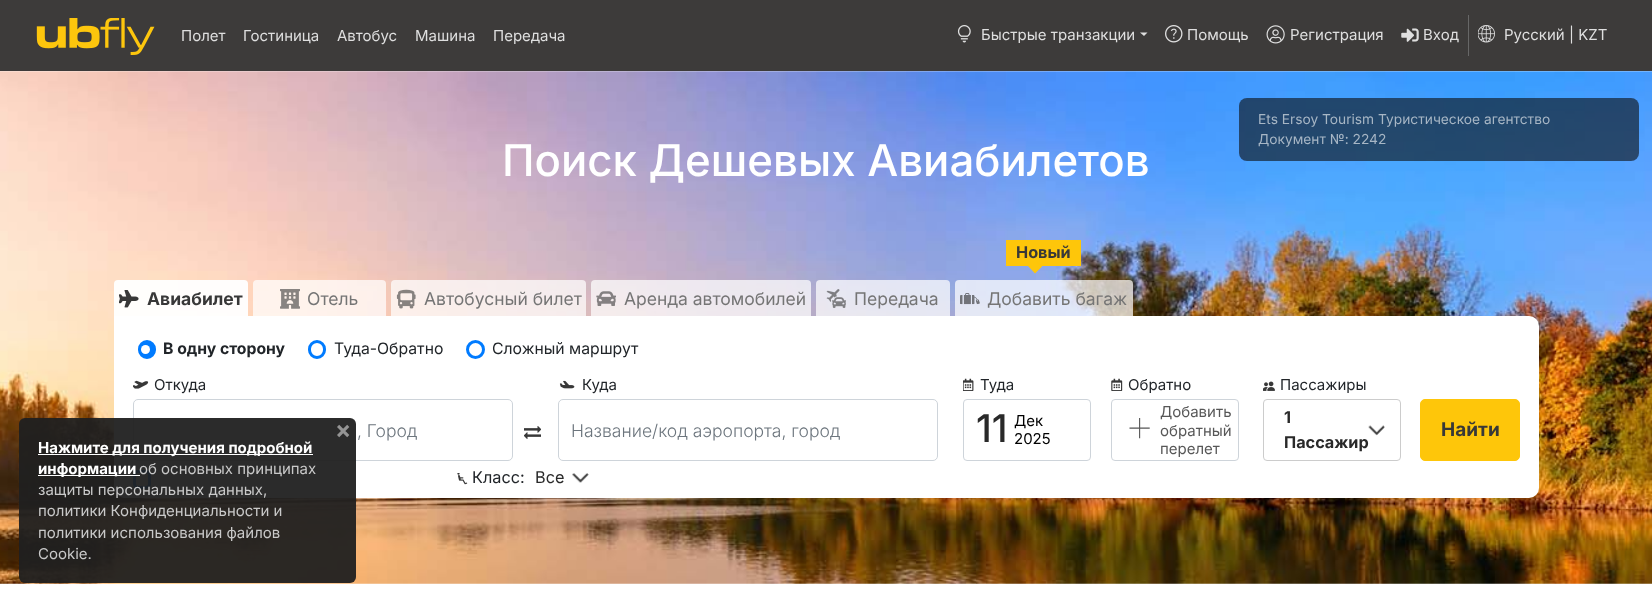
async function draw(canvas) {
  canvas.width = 1652;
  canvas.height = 601;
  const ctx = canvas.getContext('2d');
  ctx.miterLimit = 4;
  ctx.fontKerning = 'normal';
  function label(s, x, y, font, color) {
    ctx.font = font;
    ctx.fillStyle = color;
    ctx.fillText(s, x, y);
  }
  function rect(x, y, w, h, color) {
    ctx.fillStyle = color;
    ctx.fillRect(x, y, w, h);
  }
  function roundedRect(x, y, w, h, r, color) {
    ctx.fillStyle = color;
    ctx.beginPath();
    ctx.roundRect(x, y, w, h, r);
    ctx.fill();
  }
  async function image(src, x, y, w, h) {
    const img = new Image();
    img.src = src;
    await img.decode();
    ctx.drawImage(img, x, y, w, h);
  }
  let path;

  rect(0, 0, 1652, 601, '#fff');
  rect(0, 0, 1652, 71, '#3d3b3a');
  await image('assets/img1.png', 36, 18, 119, 37);
  label('Полет', 181, 41, '15px Inter', '#dfdfdf');
  label('Гостиница', 243, 41, '15px Inter', '#dfdfdf');
  label('Автобус', 337, 41, '15px Inter', '#dfdfdf');
  label('Машина', 415, 41, '15px Inter', '#dfdfdf');
  label('Передача', 493, 41, '15px Inter', '#dfdfdf');
  await image('assets/img2.png', 957, 25, 14, 18);
  label('Быстрые транзакции', 981, 40, '15px Inter', '#dfdfdf');
  path = new Path2D('M1140 32.5H1147.5L1144 36Z');
  ctx.fill(path);
  await image('assets/img3.png', 1165, 25, 18, 18);
  label('Помощь', 1187, 40, '15px Inter', '#dfdfdf');
  await image('assets/img4.png', 1266, 25, 19, 19);
  label('Регистрация', 1290, 40, '15px Inter', '#dfdfdf');
  await image('assets/img5.png', 1401, 28, 18, 14);
  label('Вход', 1423, 40, '15px Inter', '#dfdfdf');
  rect(1468, 15, 1, 41, '#676767');
  await image('assets/img6.png', 1478, 25, 17, 18);
  label('Русский | KZT', 1504, 40, '15px Inter', '#dfdfdf');
  await image('assets/img7.png', 0, 71, 1652, 513);
  roundedRect(1239, 98, 400, 63, 8, '#0c0c0c99');
  label('Ets Ersoy Tourism Туристическое агентство', 1258, 124, '13.75px Inter', '#a7b6c5');
  label('Документ №: 2242', 1258, 144, '13.75px Inter', '#a7b6c5');
  ctx.fillStyle = '#fffffff2';
  ctx.beginPath();
  ctx.roundRect(114, 280, 134, 36, [4, 4, 0, 0]);
  ctx.fill();
  await image('assets/img8.png', 119, 290, 20, 18);
  label('Авиабилет', 147, 305, 'bold 17.5px Inter', '#383838');
  ctx.fillStyle = '#ffffffb8';
  ctx.beginPath();
  ctx.roundRect(253, 280, 133, 36, [4, 4, 0, 0]);
  ctx.fill();
  await image('assets/img9.png', 280, 289, 20, 20);
  label('Отель', 307, 305, '17.5px Inter', '#757575');
  ctx.fillStyle = '#ffffffb8';
  ctx.beginPath();
  ctx.roundRect(391, 280, 195, 36, [4, 4, 0, 0]);
  ctx.fill();
  await image('assets/img10.png', 396, 289, 20, 20);
  label('Автобусный билет', 424, 305, '17.5px Inter', '#757575');
  ctx.fillStyle = '#ffffffb8';
  ctx.beginPath();
  ctx.roundRect(591, 280, 220, 36, [4, 4, 0, 0]);
  ctx.fill();
  await image('assets/img11.png', 596, 291, 20, 15);
  label('Аренда автомобилей', 624, 305, '17.5px Inter', '#757575');
  ctx.fillStyle = '#ffffffb8';
  ctx.beginPath();
  ctx.roundRect(816, 280, 134, 36, [4, 4, 0, 0]);
  ctx.fill();
  await image('assets/img12.png', 826, 289, 20, 19);
  label('Передача', 854, 305, '17.5px Inter', '#757575');
  ctx.fillStyle = '#ffffffb8';
  ctx.beginPath();
  ctx.roundRect(955, 280, 178, 36, [4, 4, 0, 0]);
  ctx.fill();
  rect(1006, 240, 75, 26, '#fec60a');
  label('Новый', 1016, 258, 'bold 16.25px Inter', '#383838');
  ctx.fillStyle = '#fec60a';
  path = new Path2D('M1035 259L1042 266.5L1035 273.5L1028 266Z');
  ctx.fill(path);
  await image('assets/img13.png', 960, 293, 20, 12);
  label('Добавить багаж', 987, 305, '17.5px Inter', '#757575');
  ctx.fillStyle = '#fff';
  ctx.beginPath();
  ctx.roundRect(114, 316, 1425, 182, [0, 10, 10, 10]);
  ctx.fill();
  ctx.fillStyle = '#007bff';
  ctx.beginPath();
  ctx.roundRect(139.5, 341.5, 15, 16, 7.5);
  ctx.fill();
  ctx.strokeStyle = '#007bff';
  ctx.lineWidth = 3;
  ctx.stroke();
  label('В одну сторону', 163, 354, 'bold 15.75px Inter', '#212529');
  ctx.fillStyle = '#fff';
  ctx.beginPath();
  ctx.arc(145.5, 349.5, 4.5, 0, 2 * Math.PI);
  ctx.fill();
  ctx.beginPath();
  ctx.roundRect(309.5, 341.5, 15, 16, 7.5);
  ctx.stroke();
  label('Туда-Обратно', 334, 354, '15.75px Inter', '#212529');
  ctx.beginPath();
  ctx.arc(475.5, 349.5, 8, 0, 2 * Math.PI);
  ctx.stroke();
  label('Сложный маршрут', 492, 354, '15.75px Inter', '#212529');
  await image('assets/img14.png', 133, 380, 16, 9);
  label('Откуда', 154, 390, '15px Inter', '#212529');
  ctx.beginPath();
  ctx.roundRect(133.5, 399.5, 379, 61, 4.5);
  ctx.strokeStyle = '#ced4da';
  ctx.lineWidth = 1;
  ctx.stroke();
  label(', Город', 357, 437, '300 17.5px Inter', '#6c757d');
  await image('assets/img15.png', 524, 426, 17, 13);
  await image('assets/img16.png', 559, 380, 16, 9);
  label('Куда', 582, 390, '15px Inter', '#212529');
  ctx.beginPath();
  ctx.roundRect(558.5, 399.5, 379, 61, 4.5);
  ctx.stroke();
  label('Название/код аэропорта, город', 571, 437, '300 17.5px Inter', '#6c757d');
  await image('assets/img17.png', 963, 378, 11, 13);
  label('Туда', 980, 390, '15px Inter', '#212529');
  ctx.beginPath();
  ctx.roundRect(963.5, 399.5, 127, 61, 3.5);
  ctx.stroke();
  label('11', 976, 442, '500 38px Inter', '#292929');
  label('Дек', 1014, 426, '15px Inter', '#000');
  label('2025', 1014, 444, '15px Inter', '#000');
  await image('assets/img18.png', 1111, 378, 12, 13);
  label('Обратно', 1128, 390, '15px Inter', '#212529');
  ctx.beginPath();
  ctx.roundRect(1111.5, 399.5, 127, 61, 3.5);
  ctx.stroke();
  label('+', 1124, 442, '100 49px Inter', '#575757');
  label('Добавить', 1160, 417, '15px Inter', '#575757');
  label('обратный', 1160, 436, '15px Inter', '#575757');
  label('перелет', 1160, 454, '15px Inter', '#575757');
  await image('assets/img19.png', 1263, 381, 12, 10);
  label('Пассажиры', 1280, 390, '15px Inter', '#212529');
  ctx.beginPath();
  ctx.roundRect(1263.5, 399.5, 137, 61, 3.5);
  ctx.strokeStyle = '#ccc';
  ctx.stroke();
  label('1', 1284, 423, 'bold 16.25px Inter', '#292929');
  label('Пассажир', 1284, 448, 'bold 16.25px Inter', '#292929');
  await image('assets/img20.png', 1368, 425, 17, 11);
  ctx.beginPath();
  ctx.roundRect(134.5, 471.5, 15, 16, 3.5);
  ctx.strokeStyle = '#007bff';
  ctx.lineWidth = 3;
  ctx.stroke();
  await image('assets/img21.png', 457, 473, 11, 12);
  label('Класс:', 472, 483, '16.25px Inter', '#212529');
  label('Все', 535, 483, '16.25px Inter', '#292929');
  await image('assets/img22.png', 572, 473, 17, 10);
  ctx.fillStyle = '#fec60a';
  ctx.beginPath();
  ctx.roundRect(1420.5, 399.5, 99, 61, 4.5);
  ctx.fill();
  ctx.strokeStyle = '#fec60a';
  ctx.lineWidth = 1;
  ctx.stroke();
  label('Найти', 1441, 436, 'bold 19px Inter', '#383838');
  label('Поиск Дешевых Авиабилетов', 502, 176, '500 43.75px Inter', '#fff');
  roundedRect(19, 418, 337, 165, 6, '#202020f2');
  label('×', 335, 438, 'bold 24px Inter', '#949494');
  rect(38, 454, 275, 1, '#fff');
  label('Нажмите для получения подробной', 38, 453, 'bold 15px Inter', '#fff');
  rect(38, 475, 102, 1, '#fff');
  label('информации', 38, 474, 'bold 15px Inter', '#fff');
  label('об основных принципах', 139, 474, '15px Inter', '#c9c9c9');
  label('защиты персональных данных,', 38, 495, '15px Inter', '#c9c9c9');
  label('политики Конфиденциальности и', 38, 516, '15px Inter', '#c9c9c9');
  label('политики использования файлов', 38, 538, '15px Inter', '#c9c9c9');
  label('Cookie.', 38, 559, '15px Inter', '#c9c9c9');
}

draw(document.querySelector('canvas'));
